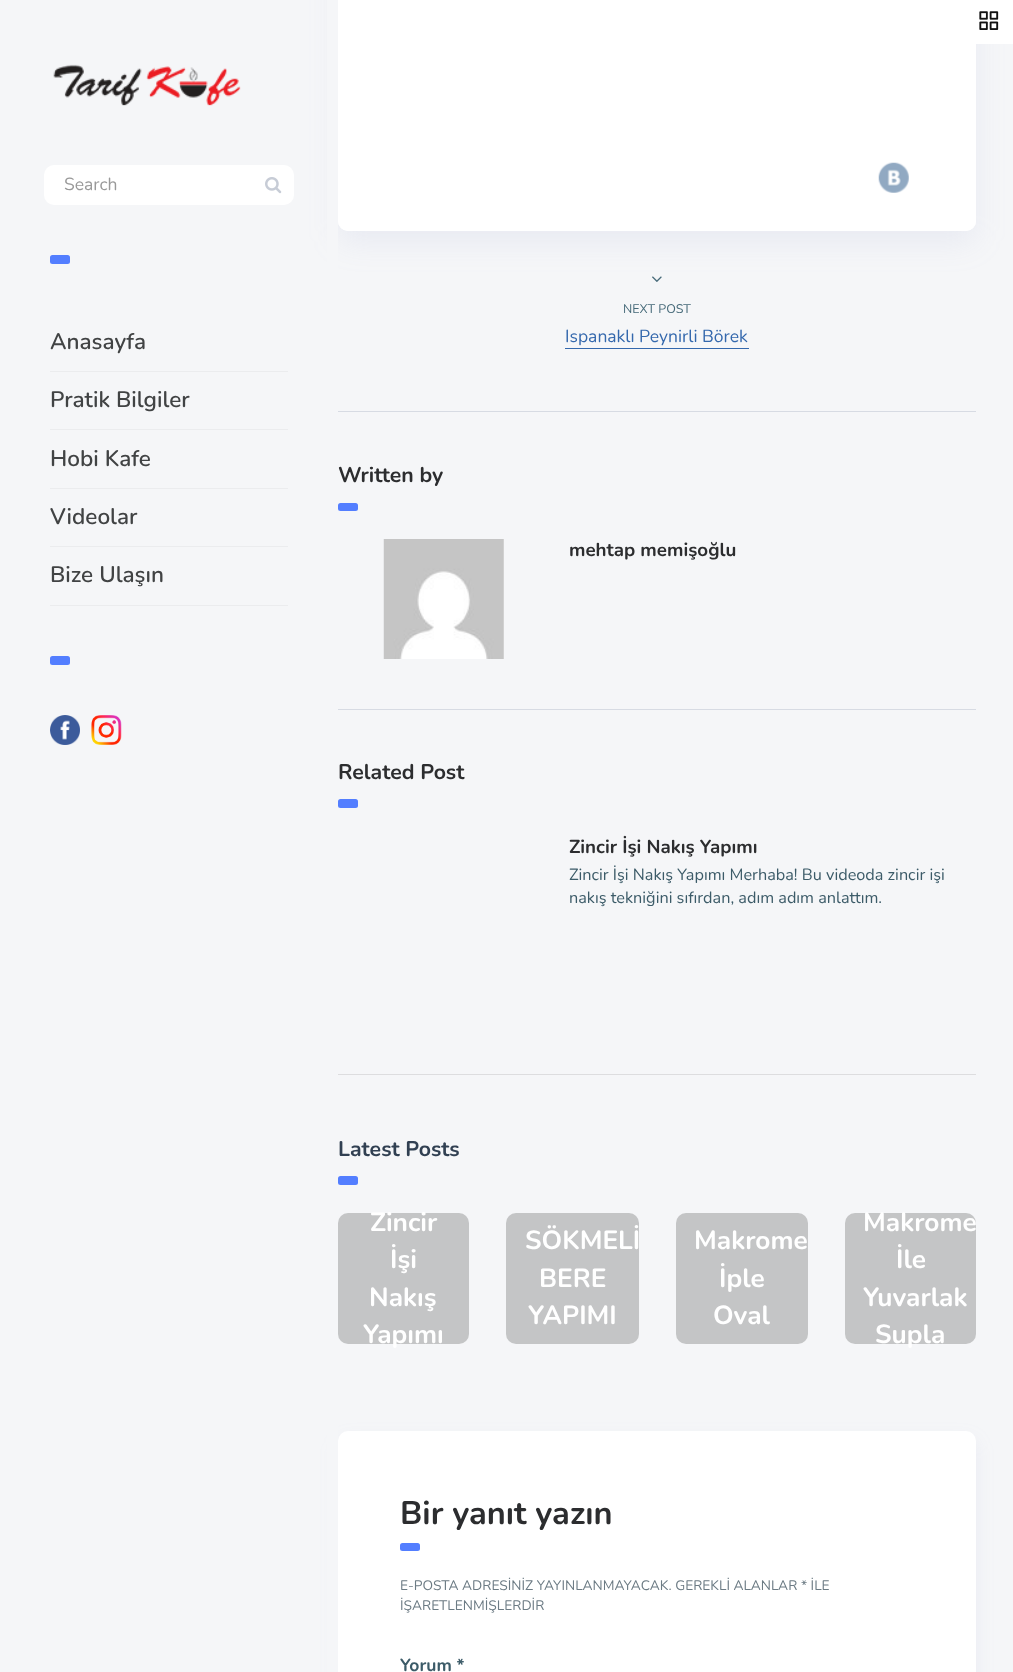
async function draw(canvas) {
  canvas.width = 1013;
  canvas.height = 1672;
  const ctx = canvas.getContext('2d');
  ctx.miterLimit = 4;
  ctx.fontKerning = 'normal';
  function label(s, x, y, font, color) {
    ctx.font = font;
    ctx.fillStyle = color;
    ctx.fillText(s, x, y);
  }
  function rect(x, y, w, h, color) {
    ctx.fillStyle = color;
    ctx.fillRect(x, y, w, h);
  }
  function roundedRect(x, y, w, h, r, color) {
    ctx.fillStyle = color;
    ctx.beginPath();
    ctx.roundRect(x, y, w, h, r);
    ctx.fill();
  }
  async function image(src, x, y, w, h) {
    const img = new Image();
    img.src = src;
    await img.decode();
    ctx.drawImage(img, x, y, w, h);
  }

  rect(0, 0, 1013, 1672, '#f5f6f8');
  await image('assets/img7.png', 652, 276, 10, 6);
  ctx.fillStyle = '#97a0cc1f';
  ctx.filter = 'blur(15px)';
  ctx.beginPath();
  ctx.roundRect(338, -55, 638, 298, 10);
  ctx.fill();
  ctx.filter = 'none';
  rect(976, 0, 37, 44, '#fff');
  await image('assets/img1.png', 979, 11, 20, 19);
  ctx.fillStyle = '#97a0cc1f';
  ctx.filter = 'blur(9px)';
  ctx.beginPath();
  ctx.roundRect(338, 1440, 638, 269, 10);
  ctx.fill();
  ctx.filter = 'none';
  rect(327, 0, 11, 1672, '#f5f6f8');
  await image('assets/img2.png', 53, 64, 188, 42);
  roundedRect(44, 165, 250, 40, 10, '#fff');
  label('Search', 64, 190, '17.5px Nunito', '#999');
  await image('assets/img3.png', 265, 177, 17, 17);
  roundedRect(50, 255, 20, 9, 2.5, '#537eff');
  rect(50, 371, 238, 1, '#ebecee');
  label('Anasayfa', 50, 349, '600 22.5px Nunito', '#414344');
  rect(50, 429, 238, 1, '#ebecee');
  label('Pratik Bilgiler', 50, 407, '600 22.5px Nunito', '#414344');
  rect(50, 488, 238, 1, '#ebecee');
  label('Hobi Kafe', 50, 466, '600 22.5px Nunito', '#414344');
  rect(50, 546, 238, 1, '#ebecee');
  label('Videolar', 50, 524, '600 22.5px Nunito', '#414344');
  rect(50, 605, 238, 1, '#ebecee');
  label('Bize Ulaşın', 50, 582, '600 22.5px Nunito', '#414344');
  roundedRect(50, 656, 20, 9, 2.5, '#537eff');
  await image('assets/img4.png', 50, 715, 30, 30);
  await image('assets/img5.png', 91, 715, 31, 30);
  roundedRect(338, -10, 638, 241, 10, '#fff');
  ctx.beginPath();
  ctx.roundRect(338, 109, 638, 122, [0, 0, 10, 10]);
  ctx.fill();
  await image('assets/img6.png', 878, 162, 31, 31);
  label('NEXT POST', 623, 313, '12.5px Nunito', '#456978');
  label('Ispanaklı Peynirli Börek', 565, 342, '17.5px Nunito', '#3468ad');
  rect(565, 348, 184, 1, '#3468ad');
  rect(338, 411, 638, 1, '#d7dbe3');
  label('Written by', 338, 482, 'bold 21.25px Nunito', '#2c2d2f');
  roundedRect(338, 503, 20, 8, 2.5, '#537eff');
  await image('assets/img8.png', 383, 539, 121, 120);
  label('mehtap memişoğlu', 569, 556, 'bold 18.75px Nunito', '#2c2d2f');
  rect(338, 709, 638, 1, '#d7dbe3');
  label('Related Post', 338, 779, 'bold 21.25px Nunito', '#2c2d2f');
  roundedRect(338, 799, 20, 9, 2.5, '#537eff');
  label('Zincir İşi Nakış Yapımı', 569, 853, 'bold 18.75px Nunito', '#2c2d2f');
  label('Zincir İşi Nakış Yapımı Merhaba! Bu videoda zincir işi', 569, 880, '16.25px Nunito', '#3c5b68');
  label('nakış tekniğini sıfırdan, adım adım anlattım.', 569, 903, '16.25px Nunito', '#3c5b68');
  rect(338, 1074, 638, 1, '#dddddf');
  label('Latest Posts', 338, 1156, 'bold 21.25px Nunito', '#314052');
  roundedRect(338, 1176, 20, 9, 2.5, '#537eff');
  roundedRect(338, 1213, 131, 131, 10, '#c4c5c6');
  label('Zincir', 370, 1231, 'bold 26.25px Nunito', '#fff');
  label('İşi', 390, 1268, 'bold 26.25px Nunito', '#fff');
  label('Nakış', 369, 1306, 'bold 26.25px Nunito', '#fff');
  label('Yapımı', 363, 1343, 'bold 26.25px Nunito', '#fff');
  roundedRect(506, 1213, 133, 131, 10, '#c4c5c6');
  label('SÖKMELİ', 525, 1249, 'bold 26.25px Nunito', '#fff');
  label('BERE', 539, 1287, 'bold 26.25px Nunito', '#fff');
  label('YAPIMI', 528, 1324, 'bold 26.25px Nunito', '#fff');
  roundedRect(676, 1213, 132, 131, 10, '#c4c5c6');
  label('Makrome', 694, 1249, 'bold 26.25px Nunito', '#fff');
  label('İple', 719, 1287, 'bold 26.25px Nunito', '#fff');
  label('Oval', 713, 1324, 'bold 26.25px Nunito', '#fff');
  roundedRect(845, 1213, 131, 131, 10, '#c4c5c6');
  label('Makrome', 863, 1231, 'bold 26.25px Nunito', '#fff');
  label('İle', 896, 1268, 'bold 26.25px Nunito', '#fff');
  label('Yuvarlak', 863, 1306, 'bold 26.25px Nunito', '#fff');
  label('Supla', 875, 1343, 'bold 26.25px Nunito', '#fff');
  roundedRect(338, 1431, 638, 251, 10, '#fff');
  label('Bir yanıt yazın', 400, 1524, 'bold 32.5px Nunito', '#2c2d2f');
  roundedRect(400, 1543, 20, 8, 2.5, '#537eff');
  label('E-POSTA ADRESİNİZ YAYINLANMAYACAK. GEREKLİ ALANLAR * İLE', 400, 1590, '13.75px Nunito', '#6c7b84');
  label('İŞARETLENMİŞLERDİR', 400, 1610, '13.75px Nunito', '#6c7b84');
  label('Yorum *', 400, 1671, 'bold 17.5px Nunito', '#3c5b68');
}

draw(document.querySelector('canvas'));
